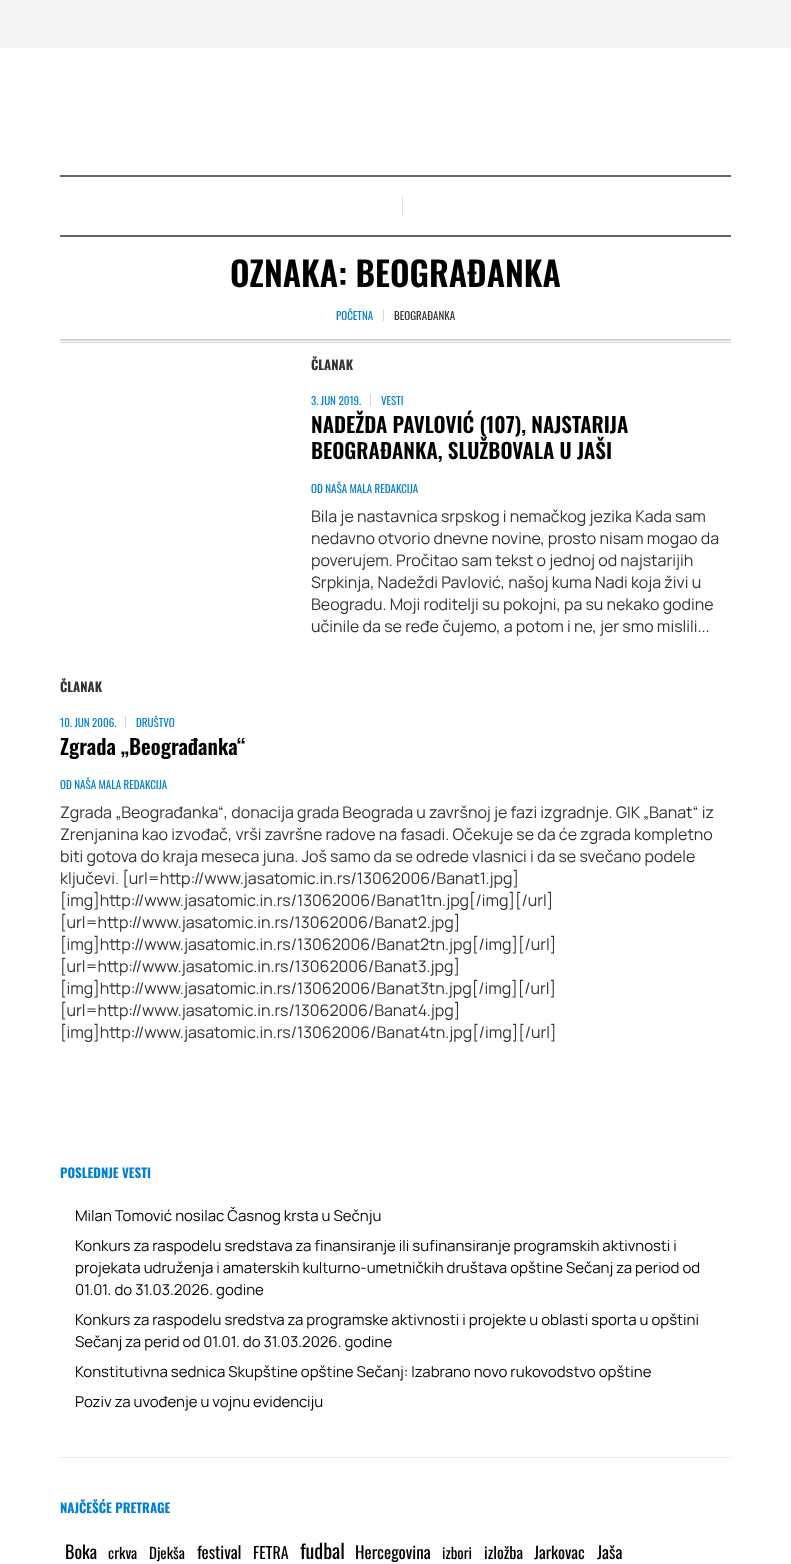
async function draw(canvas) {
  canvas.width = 791;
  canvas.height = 1564;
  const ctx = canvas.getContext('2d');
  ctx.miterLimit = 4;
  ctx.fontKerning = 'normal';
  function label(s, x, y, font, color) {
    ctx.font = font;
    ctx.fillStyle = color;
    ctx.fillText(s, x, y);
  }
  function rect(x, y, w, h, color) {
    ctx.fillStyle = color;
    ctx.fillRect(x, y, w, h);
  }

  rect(0, 0, 791, 1564, '#f4f4f4');
  rect(0, 48, 791, 189, '#fff');
  rect(60, 175, 671, 2, '#666');
  rect(60, 235, 671, 2, '#666');
  rect(402, 197, 1, 18, '#dfdfdf');
  rect(0, 237, 791, 1327, '#fff');
  rect(60, 339, 671, 2, '#d4d4d4');
  rect(60, 342, 671, 1, '#d4d4d4');
  label('OZNAKA: BEOGRAĐANKA', 230, 287, '600 34px Oswald', '#000');
  label('POČETNA', 336, 320, '11px Oswald', '#0080ce');
  rect(383, 309, 1, 12, '#d4d4d4');
  label('BEOGRAĐANKA', 394, 320, '11px Oswald', '#333');
  label('ČLANAK', 311, 370, 'bold 13px Oswald', '#333');
  label('3. JUN 2019.', 311, 405, '11px Oswald', '#0080ce');
  rect(370, 394, 1, 12, '#d4d4d4');
  label('VESTI', 381, 405, '11px Oswald', '#0080ce');
  label('NADEŽDA PAVLOVIĆ (107), NAJSTARIJA', 311, 433, '600 21px Oswald', '#000');
  label('BEOGRAĐANKA, SLUŽBOVALA U JAŠI', 311, 459, '600 21px Oswald', '#000');
  label('OD NAŠA MALA REDAKCIJA', 311, 493, '11px Oswald', '#0080ce');
  label('Bila je nastavnica srpskog i nemačkog jezika Kada sam', 311, 522, '16px Manrope', '#333');
  label('nedavno otvorio dnevne novine, prosto nisam mogao da', 311, 544, '16px Manrope', '#333');
  label('poverujem. Pročitao sam tekst o jednoj od najstarijih', 311, 566, '16px Manrope', '#333');
  label('Srpkinja, Nadeždi Pavlović, našoj kuma Nadi koja živi u', 311, 588, '16px Manrope', '#333');
  label('Beogradu. Moji roditelji su pokojni, pa su nekako godine', 311, 610, '16px Manrope', '#333');
  label('učinile da se ređe čujemo, a potom i ne, jer smo mislili...', 311, 632, '16px Manrope', '#333');
  label('ČLANAK', 60, 692, 'bold 13px Oswald', '#333');
  label('10. JUN 2006.', 60, 727, '11px Oswald', '#0080ce');
  rect(125, 716, 1, 12, '#d4d4d4');
  label('DRUŠTVO', 136, 727, '11px Oswald', '#0080ce');
  label('Zgrada „Beograđanka“', 60, 755, '600 21px Oswald', '#000');
  label('OD NAŠA MALA REDAKCIJA', 60, 789, '11px Oswald', '#0080ce');
  label('Zgrada „Beograđanka“, donacija grada Beograda u završnoj je fazi izgradnje. GIK „Banat“ iz', 60, 818, '16px Manrope', '#333');
  label('Zrenjanina kao izvođač, vrši završne radove na fasadi. Očekuje se da će zgrada kompletno', 60, 840, '16px Manrope', '#333');
  label('biti gotova do kraja meseca juna. Još samo da se odrede vlasnici i da se svečano podele', 60, 862, '16px Manrope', '#333');
  label('ključevi. [url=http://www.jasatomic.in.rs/13062006/Banat1.jpg]', 60, 884, '16px Manrope', '#333');
  label('[img]http://www.jasatomic.in.rs/13062006/Banat1tn.jpg[/img][/url]', 60, 906, '16px Manrope', '#333');
  label('[url=http://www.jasatomic.in.rs/13062006/Banat2.jpg]', 60, 928, '16px Manrope', '#333');
  label('[img]http://www.jasatomic.in.rs/13062006/Banat2tn.jpg[/img][/url]', 60, 950, '16px Manrope', '#333');
  label('[url=http://www.jasatomic.in.rs/13062006/Banat3.jpg]', 60, 972, '16px Manrope', '#333');
  label('[img]http://www.jasatomic.in.rs/13062006/Banat3tn.jpg[/img][/url]', 60, 994, '16px Manrope', '#333');
  label('[url=http://www.jasatomic.in.rs/13062006/Banat4.jpg]', 60, 1016, '16px Manrope', '#333');
  label('[img]http://www.jasatomic.in.rs/13062006/Banat4tn.jpg[/img][/url]', 60, 1038, '16px Manrope', '#333');
  label('POSLEDNJE VESTI', 60, 1178, 'bold 13px Oswald', '#0080ce');
  label('Milan Tomović nosilac Časnog krsta u Sečnju', 75, 1221, '15px Manrope', '#000');
  label('Konkurs za raspodelu sredstava za finansiranje ili sufinansiranje programskih aktivnosti i', 75, 1251, '15px Manrope', '#000');
  label('projekata udruženja i amaterskih kulturno-umetničkih društava opštine Sečanj za period od', 75, 1273, '15px Manrope', '#000');
  label('01.01. do 31.03.2026. godine', 75, 1295, '15px Manrope', '#000');
  label('Konkurs za raspodelu sredstva za programske aktivnosti i projekte u oblasti sporta u opštini', 75, 1325, '15px Manrope', '#000');
  label('Sečanj za perid od 01.01. do 31.03.2026. godine', 75, 1347, '15px Manrope', '#000');
  label('Konstitutivna sednica Skupštine opštine Sečanj: Izabrano novo rukovodstvo opštine', 75, 1377, '15px Manrope', '#000');
  label('Poziv za uvođenje u vojnu evidenciju', 75, 1407, '15px Manrope', '#000');
  rect(60, 1457, 671, 1, '#eaeaea');
  label('NAJČEŠĆE PRETRAGE', 60, 1513, 'bold 13px Oswald', '#0080ce');
  label('Boka', 65, 1559, '18px Oswald', '#000');
  label('crkva', 108, 1559, '15px Oswald', '#000');
  label('Djekša', 149, 1559, '15px Oswald', '#000');
  label('festival', 197, 1559, '17px Oswald', '#000');
  label('FETRA', 253, 1559, '16px Oswald', '#000');
  label('fudbal', 300, 1559, '20px Oswald', '#000');
  label('Hercegovina', 355, 1559, '17px Oswald', '#000');
  label('izbori', 442, 1559, '15px Oswald', '#000');
  label('izložba', 484, 1559, '16px Oswald', '#000');
  label('Jarkovac', 534, 1559, '16.5px Oswald', '#000');
  label('Jaša', 597, 1559, '17px Oswald', '#000');
}

draw(document.querySelector('canvas'));
